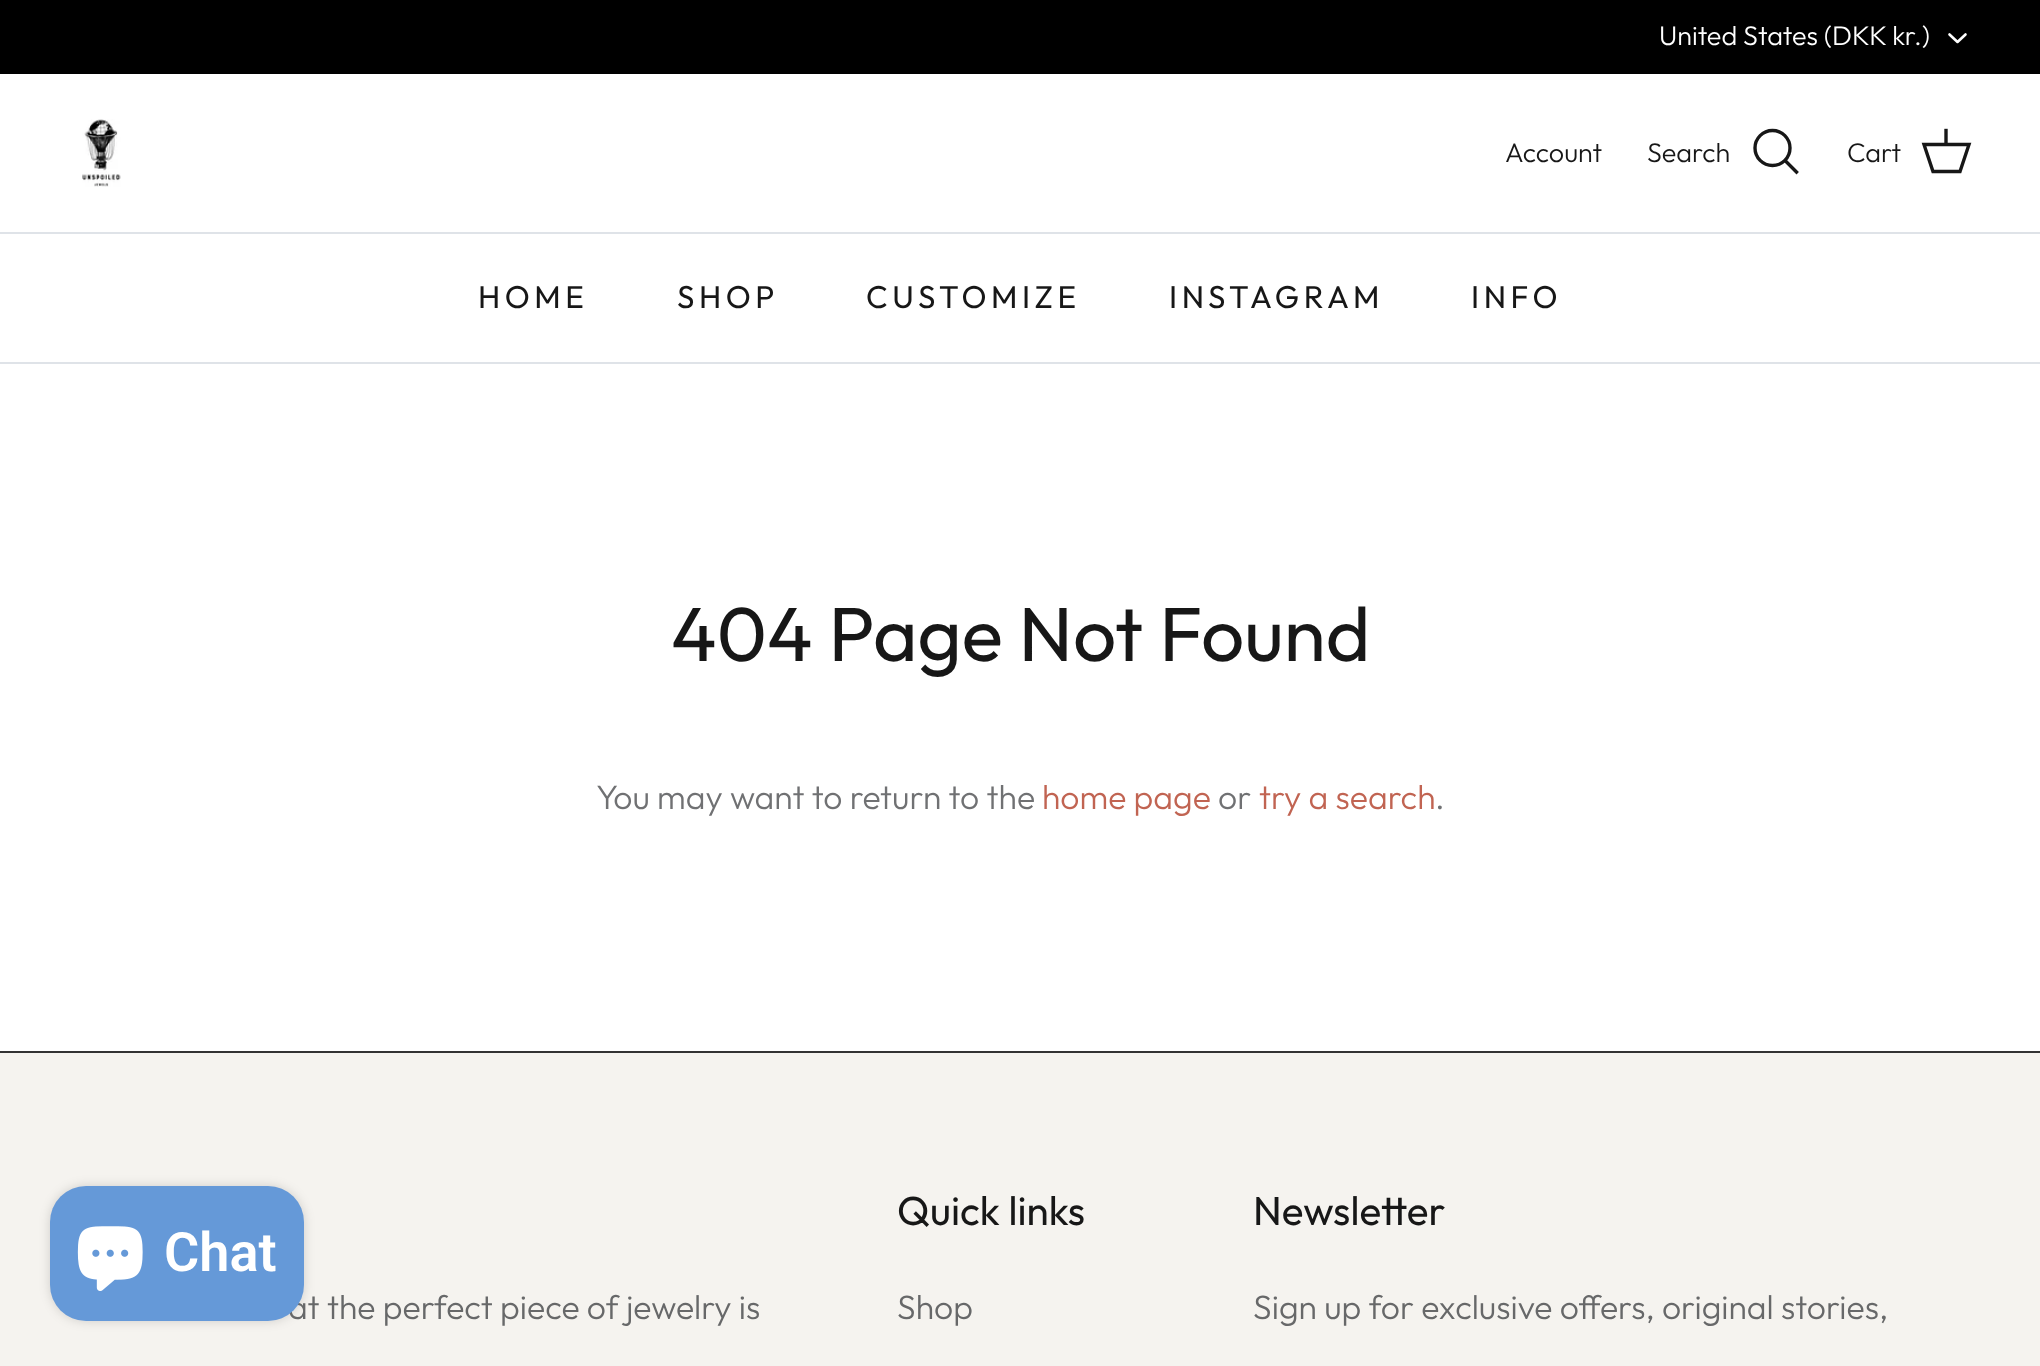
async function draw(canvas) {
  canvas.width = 2040;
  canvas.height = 1366;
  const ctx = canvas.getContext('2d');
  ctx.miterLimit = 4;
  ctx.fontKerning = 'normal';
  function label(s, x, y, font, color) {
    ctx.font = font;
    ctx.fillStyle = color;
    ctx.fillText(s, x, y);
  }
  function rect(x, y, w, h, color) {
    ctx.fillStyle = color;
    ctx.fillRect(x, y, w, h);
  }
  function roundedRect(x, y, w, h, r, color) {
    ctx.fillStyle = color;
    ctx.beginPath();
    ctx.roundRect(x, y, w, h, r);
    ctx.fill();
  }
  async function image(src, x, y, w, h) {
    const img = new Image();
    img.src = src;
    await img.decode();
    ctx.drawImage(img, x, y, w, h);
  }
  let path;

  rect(0, 0, 2040, 1366, '#fff');
  rect(0, 0, 2040, 74, '#000');
  label('United States (DKK kr.)', 1659, 45, '300 27px Outfit', '#fff');
  path = new Path2D('M1949.5 34.5L1957.5 42L1965.5 34.5');
  ctx.strokeStyle = '#fff';
  ctx.lineWidth = 2.6;
  ctx.lineCap = 'round';
  ctx.lineJoin = 'round';
  ctx.stroke(path);
  rect(0, 232, 2040, 2, '#dfe3e8');
  await image('assets/img1.png', 82, 119, 39, 68);
  label('Account', 1505, 162, '300 27px Outfit', '#171717');
  label('Search', 1647, 162, '300 27px Outfit', '#171717');
  ctx.beginPath();
  ctx.arc(1772.5, 148, 17.5, 0, 2 * Math.PI);
  ctx.strokeStyle = '#171717';
  ctx.lineWidth = 3.4;
  ctx.stroke();
  path = new Path2D('M1786.5 162L1796.5 172');
  ctx.lineCap = 'square';
  ctx.lineJoin = 'miter';
  ctx.stroke(path);
  label('Cart', 1847, 162, '300 27px Outfit', '#171717');
  path = new Path2D('M1924 144.5H1969L1960 171.5H1933Z');
  ctx.lineCap = 'butt';
  ctx.stroke(path);
  path = new Path2D('M1946 144V130.5');
  ctx.lineCap = 'square';
  ctx.stroke(path);
  rect(0, 362, 2040, 2, '#dfe3e8');
  ctx.letterSpacing = '4.5px';
  label('HOME', 478, 308, '31.5px Outfit', '#171717');
  label('SHOP', 677, 308, '31.5px Outfit', '#171717');
  label('CUSTOMIZE', 866, 308, '31.5px Outfit', '#171717');
  label('INSTAGRAM', 1169, 308, '31.5px Outfit', '#171717');
  label('INFO', 1471, 308, '31.5px Outfit', '#171717');
  ctx.letterSpacing = '0px';
  label('404 Page Not Found', 671, 661, '76.5px Outfit', '#171717');
  label('You may want to return to the', 596, 809, '300 33.75px Outfit', '#707173');
  label('home page', 1042, 809, '300 33.75px Outfit', '#c16452');
  label('or', 1218, 809, '300 33.75px Outfit', '#707173');
  label('try a search', 1259, 809, '300 33.75px Outfit', '#c16452');
  label('.', 1435, 809, '300 33.75px Outfit', '#707173');
  rect(0, 1053, 2040, 313, '#f5f3ef');
  ctx.fillStyle = '#00000026';
  ctx.filter = 'blur(5.5px)';
  ctx.beginPath();
  ctx.roundRect(50, 1186, 254, 135, 36);
  ctx.fill();
  ctx.filter = 'none';
  label('at the perfect piece of jewelry is', 288, 1319, '300 33.75px Outfit', '#676869');
  roundedRect(50, 1186, 254, 135, 36, '#6599d8');
  await image('assets/img2.png', 77, 1226, 66, 65);
  label('Chat', 164, 1271, '600 54px Roboto', '#fff');
  rect(0, 1051, 2040, 2, '#333');
  label('Quick links', 897, 1225, '40.5px Outfit', '#171717');
  label('Shop', 897, 1319, '300 33.75px Outfit', '#676869');
  label('Newsletter', 1253, 1225, '40.5px Outfit', '#171717');
  label('Sign up for exclusive offers, original stories,', 1253, 1319, '300 33.75px Outfit', '#676869');
}

draw(document.querySelector('canvas'));
